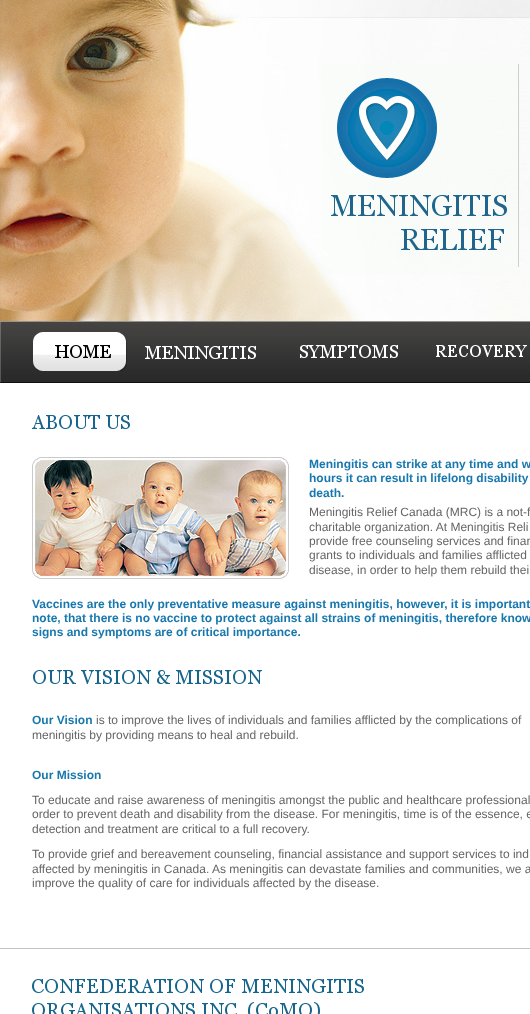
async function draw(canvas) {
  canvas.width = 530;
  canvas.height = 1014;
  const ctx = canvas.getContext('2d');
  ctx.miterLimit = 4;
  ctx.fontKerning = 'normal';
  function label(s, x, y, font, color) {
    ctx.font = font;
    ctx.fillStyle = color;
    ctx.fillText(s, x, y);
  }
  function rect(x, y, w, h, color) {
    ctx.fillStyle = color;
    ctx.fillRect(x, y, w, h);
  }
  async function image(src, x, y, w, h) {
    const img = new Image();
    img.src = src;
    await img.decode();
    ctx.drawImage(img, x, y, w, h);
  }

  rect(0, 0, 530, 1014, '#fff');
  await image('assets/img1.png', 0, 0, 530, 383);
  await image('assets/img2.png', 322, 64, 197, 211);
  await image('assets/img3.png', 33, 332, 94, 39);
  await image('assets/img4.png', 145, 346, 111, 13);
  await image('assets/img5.png', 300, 345, 98, 13);
  await image('assets/img6.png', 436, 345, 91, 12);
  rect(0, 948, 530, 1, '#c3c3c3');
  await image('assets/img7.png', 32, 415, 98, 14);
  await image('assets/img8.png', 32, 457, 257, 122);
  label('Meningitis can strike at any time and w', 309, 468, 'bold 12px Liberation Sans', '#1878ae');
  label('hours it can result in lifelong disability', 309, 482, 'bold 12px Liberation Sans', '#1878ae');
  label('death.', 309, 497, 'bold 12px Liberation Sans', '#1878ae');
  label('Meningitis Relief Canada (MRC) is a not-f', 309, 516, '12px Liberation Sans', '#656565');
  label('charitable organization. At Meningitis Reli', 309, 531, '12px Liberation Sans', '#656565');
  label('provide free counseling services and finan', 309, 545, '12px Liberation Sans', '#656565');
  label('grants to individuals and families afflicted', 309, 559, '12px Liberation Sans', '#656565');
  label('disease, in order to help them rebuild thei', 309, 574, '12px Liberation Sans', '#656565');
  label('Vaccines are the only preventative measure against meningitis, however, it is important', 32, 608, 'bold 12px Liberation Sans', '#1878ae');
  label('note, that there is no vaccine to protect against all strains of meningitis, therefore know', 32, 622, 'bold 12px Liberation Sans', '#1878ae');
  label('signs and symptoms are of critical importance.', 32, 636, 'bold 12px Liberation Sans', '#1878ae');
  await image('assets/img9.png', 33, 670, 229, 14);
  label('Our Vision', 32, 724, 'bold 12px Liberation Sans', '#1878ae');
  label('is to improve the lives of individuals and families afflicted by the complications of', 96, 724, '12px Liberation Sans', '#656565');
  label('meningitis by providing means to heal and rebuild.', 32, 739, '12px Liberation Sans', '#656565');
  label('Our Mission', 32, 779, 'bold 12px Liberation Sans', '#1878ae');
  label('To educate and raise awareness of meningitis amongst the public and healthcare professional', 32, 804, '12px Liberation Sans', '#656565');
  label('order to prevent death and disability from the disease. For meningitis, time is of the essence, e', 32, 818, '12px Liberation Sans', '#656565');
  label('detection and treatment are critical to a full recovery.', 32, 833, '12px Liberation Sans', '#656565');
  label('To provide grief and bereavement counseling, financial assistance and support services to ind', 32, 858, '12px Liberation Sans', '#656565');
  label('affected by meningitis in Canada. As meningitis can devastate families and communities, we a', 32, 873, '12px Liberation Sans', '#656565');
  label('improve the quality of care for individuals affected by the disease.', 32, 887, '12px Liberation Sans', '#656565');
  await image('assets/img10.png', 32, 979, 332, 35);
}

draw(document.querySelector('canvas'));
